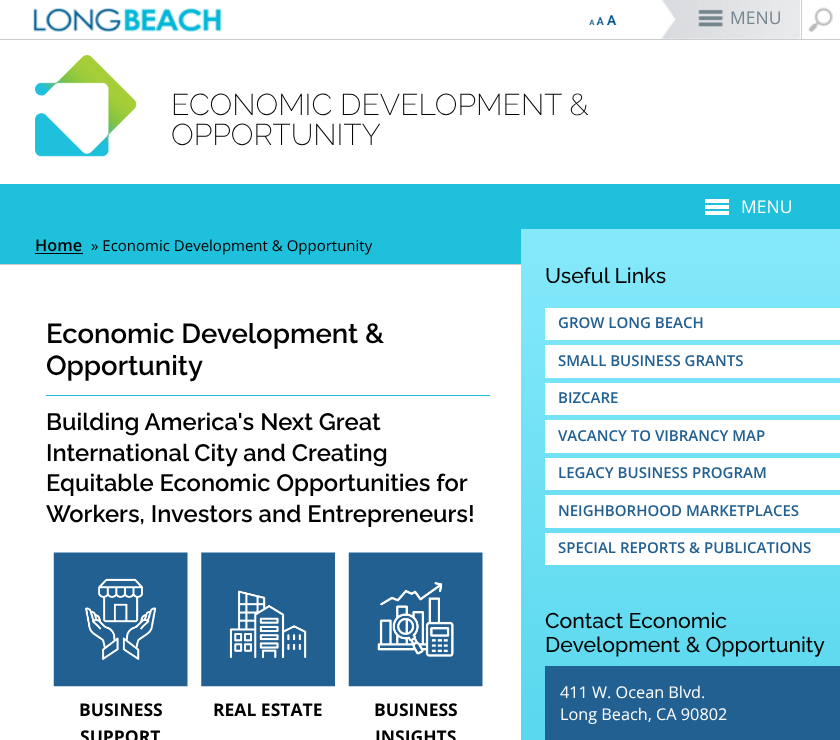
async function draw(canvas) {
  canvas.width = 840;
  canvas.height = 740;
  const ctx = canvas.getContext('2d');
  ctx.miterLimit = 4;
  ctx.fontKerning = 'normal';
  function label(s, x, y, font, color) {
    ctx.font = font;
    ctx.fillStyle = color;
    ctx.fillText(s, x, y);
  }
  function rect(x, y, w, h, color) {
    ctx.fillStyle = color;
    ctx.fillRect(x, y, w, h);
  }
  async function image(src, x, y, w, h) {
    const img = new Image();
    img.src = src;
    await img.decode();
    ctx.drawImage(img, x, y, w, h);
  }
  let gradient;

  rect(0, 0, 840, 740, '#fff');
  rect(0, 39, 840, 1, '#ccc');
  await image('assets/img1.png', 33, 8, 189, 24);
  await image('assets/img2.png', 589, 15, 28, 10);
  await image('assets/img3.png', 661, 0, 139, 39);
  label('MENU', 730, 24, '17.5px Open Sans', '#76858d');
  await image('assets/img4.png', 808, 7, 25, 26);
  rect(801, 0, 1, 40, '#ccc');
  await image('assets/img5.png', 35, 55, 102, 102);
  label('ECONOMIC DEVELOPMENT &', 171, 115, '200 30px Raleway', '#000');
  label('OPPORTUNITY', 171, 145, '200 30px Raleway', '#000');
  rect(0, 184, 840, 45, '#1fc0dc');
  rect(705, 211, 24, 4, '#fff');
  rect(705, 205, 24, 4, '#fff');
  rect(705, 199, 24, 4, '#fff');
  label('MENU', 741, 213, '17.5px Open Sans', '#fff');
  rect(0, 229, 521, 35, '#1fc0dc');
  rect(0, 264, 521, 1, '#ccc');
  label('Home', 35, 251, '600 16.25px Open Sans', '#000');
  rect(35, 253, 48, 1, '#000');
  label('» Economic Development & Opportunity', 91, 251, '15px Open Sans', '#000');
  rect(46, 395, 444, 1, '#1fc0dc');
  label('Economic Development &', 46, 343, '600 27.5px Raleway', '#000');
  label('Opportunity', 46, 375, '600 27.5px Raleway', '#000');
  label('Building America\'s Next Great', 46, 430, '600 23.75px Raleway', '#000');
  label('International City and Creating', 46, 461, '600 23.75px Raleway', '#000');
  label('Equitable Economic Opportunities for', 46, 491, '600 23.75px Raleway', '#000');
  label('Workers, Investors and Entrepreneurs!', 46, 522, '600 23.75px Raleway', '#000');
  await image('assets/img6.png', 53, 552, 135, 135);
  label('BUSINESS', 79, 716, 'bold 17.5px Open Sans', '#000');
  label('SUPPORT', 80, 743, 'bold 17.5px Open Sans', '#000');
  await image('assets/img7.png', 201, 552, 134, 135);
  label('REAL ESTATE', 213, 716, 'bold 17.5px Open Sans', '#000');
  await image('assets/img8.png', 348, 552, 135, 135);
  label('BUSINESS', 374, 716, 'bold 17.5px Open Sans', '#000');
  label('INSIGHTS', 375, 743, 'bold 17.5px Open Sans', '#000');
  gradient = ctx.createLinearGradient(681, 229, 681, 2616);
  gradient.addColorStop(0, '#85e9fb');
  gradient.addColorStop(0.5, '#1fc0dc');
  gradient.addColorStop(1, '#04b4d2');
  ctx.fillStyle = gradient;
  ctx.fillRect(521, 229, 319, 511);
  label('Useful Links', 545, 283, '500 21.25px Raleway', '#000');
  rect(545, 308, 295, 32, '#fff');
  label('GROW LONG BEACH', 558, 328, '600 15px Open Sans', '#236092');
  rect(545, 345, 295, 33, '#fff');
  label('SMALL BUSINESS GRANTS', 558, 366, '600 15px Open Sans', '#236092');
  rect(545, 383, 295, 32, '#fff');
  label('BIZCARE', 558, 403, '600 15px Open Sans', '#236092');
  rect(545, 420, 295, 33, '#fff');
  label('VACANCY TO VIBRANCY MAP', 558, 441, '600 15px Open Sans', '#236092');
  rect(545, 458, 295, 32, '#fff');
  label('LEGACY BUSINESS PROGRAM', 558, 478, '600 15px Open Sans', '#236092');
  rect(545, 495, 295, 33, '#fff');
  label('NEIGHBORHOOD MARKETPLACES', 558, 516, '600 15px Open Sans', '#236092');
  rect(545, 533, 295, 32, '#fff');
  label('SPECIAL REPORTS & PUBLICATIONS', 558, 553, '600 15px Open Sans', '#236092');
  label('Contact Economic', 545, 628, '500 21.25px Raleway', '#000');
  label('Development & Opportunity', 545, 652, '500 21.25px Raleway', '#000');
  rect(545, 666, 295, 74, '#236092');
  label('411 W. Ocean Blvd.', 560, 698, '16.25px Open Sans', '#fff');
  label('Long Beach, CA 90802', 560, 720, '16.25px Open Sans', '#fff');
}

draw(document.querySelector('canvas'));
